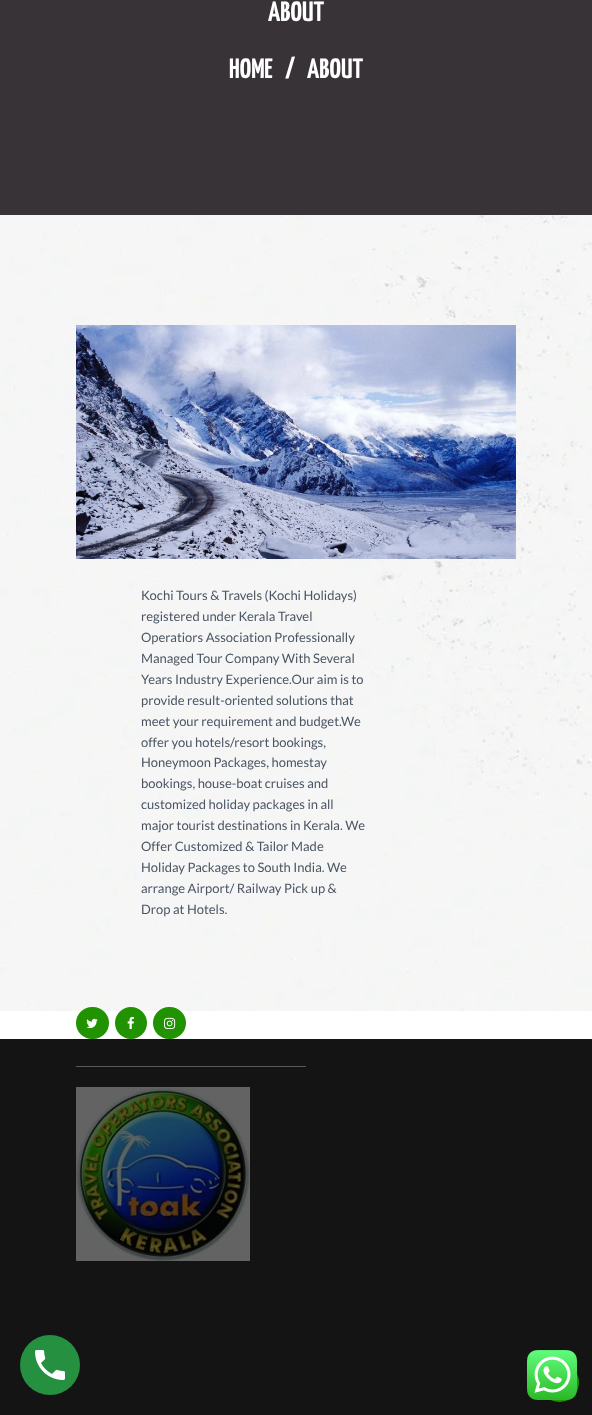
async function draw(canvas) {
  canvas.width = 592;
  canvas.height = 1415;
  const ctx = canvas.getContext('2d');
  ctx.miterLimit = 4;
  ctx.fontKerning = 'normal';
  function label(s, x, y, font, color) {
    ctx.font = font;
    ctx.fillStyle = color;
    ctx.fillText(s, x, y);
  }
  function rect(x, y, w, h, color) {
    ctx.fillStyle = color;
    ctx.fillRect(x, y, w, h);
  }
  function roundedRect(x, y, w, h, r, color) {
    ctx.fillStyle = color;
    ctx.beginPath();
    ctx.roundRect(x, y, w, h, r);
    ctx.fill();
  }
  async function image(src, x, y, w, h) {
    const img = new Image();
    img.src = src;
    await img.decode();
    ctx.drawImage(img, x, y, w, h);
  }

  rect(0, 0, 592, 1415, '#373337');
  label('ABOUT', 268, 21, 'bold 28px Yanone Kaffeesatz', '#fff');
  label('HOME', 229, 78, 'bold 28px Yanone Kaffeesatz', '#fff');
  label('/', 285, 78, 'bold 28px Yanone Kaffeesatz', '#fff');
  label('ABOUT', 307, 78, 'bold 28px Yanone Kaffeesatz', '#fff');
  rect(0, 1011, 592, 28, '#fff');
  await image('assets/img1.png', 0, 215, 592, 796);
  await image('assets/img2.png', 76, 325, 440, 234);
  label('Kochi Tours & Travels (Kochi Holidays)', 141, 600, '13px Lato', '#4b5664');
  label('registered under Kerala Travel', 141, 621, '13px Lato', '#4b5664');
  label('Operatiors Association Professionally', 141, 642, '13px Lato', '#4b5664');
  label('Managed Tour Company With Several', 141, 663, '13px Lato', '#4b5664');
  label('Years Industry Experience.Our aim is to', 141, 684, '13px Lato', '#4b5664');
  label('provide result-oriented solutions that', 141, 705, '13px Lato', '#4b5664');
  label('meet your requirement and budget.We', 141, 726, '13px Lato', '#4b5664');
  label('offer you hotels/resort bookings,', 141, 747, '13px Lato', '#4b5664');
  label('Honeymoon Packages, homestay', 141, 767, '13px Lato', '#4b5664');
  label('bookings, house-boat cruises and', 141, 788, '13px Lato', '#4b5664');
  label('customized holiday packages in all', 141, 809, '13px Lato', '#4b5664');
  label('major tourist destinations in Kerala. We', 141, 830, '13px Lato', '#4b5664');
  label('Offer Customized & Tailor Made', 141, 851, '13px Lato', '#4b5664');
  label('Holiday Packages to South India. We', 141, 872, '13px Lato', '#4b5664');
  label('arrange Airport/ Railway Pick up &', 141, 893, '13px Lato', '#4b5664');
  label('Drop at Hotels.', 141, 914, '13px Lato', '#4b5664');
  roundedRect(76, 1007, 33, 32, 16, '#219301');
  await image('assets/img3.png', 86, 1018, 12, 11);
  ctx.beginPath();
  ctx.arc(131, 1023, 16, 0, 2 * Math.PI);
  ctx.fill();
  await image('assets/img4.png', 127, 1016, 7, 13);
  roundedRect(153, 1007, 33, 32, 16, '#219301');
  await image('assets/img5.png', 164, 1017, 12, 12);
  rect(0, 1039, 592, 376, '#151415');
  rect(76, 1066, 230, 1, '#595959');
  await image('assets/img6.png', 76, 1087, 174, 174);
  ctx.fillStyle = '#269041';
  ctx.beginPath();
  ctx.arc(50, 1365, 30, 0, 2 * Math.PI);
  ctx.fill();
  await image('assets/img7.png', 35, 1350, 30, 30);
  ctx.fillStyle = '#219301';
  ctx.beginPath();
  ctx.arc(559.5, 1382.5, 19.5, 0, 2 * Math.PI);
  ctx.fill();
  await image('assets/img8.png', 527, 1350, 50, 50);
}

draw(document.querySelector('canvas'));
